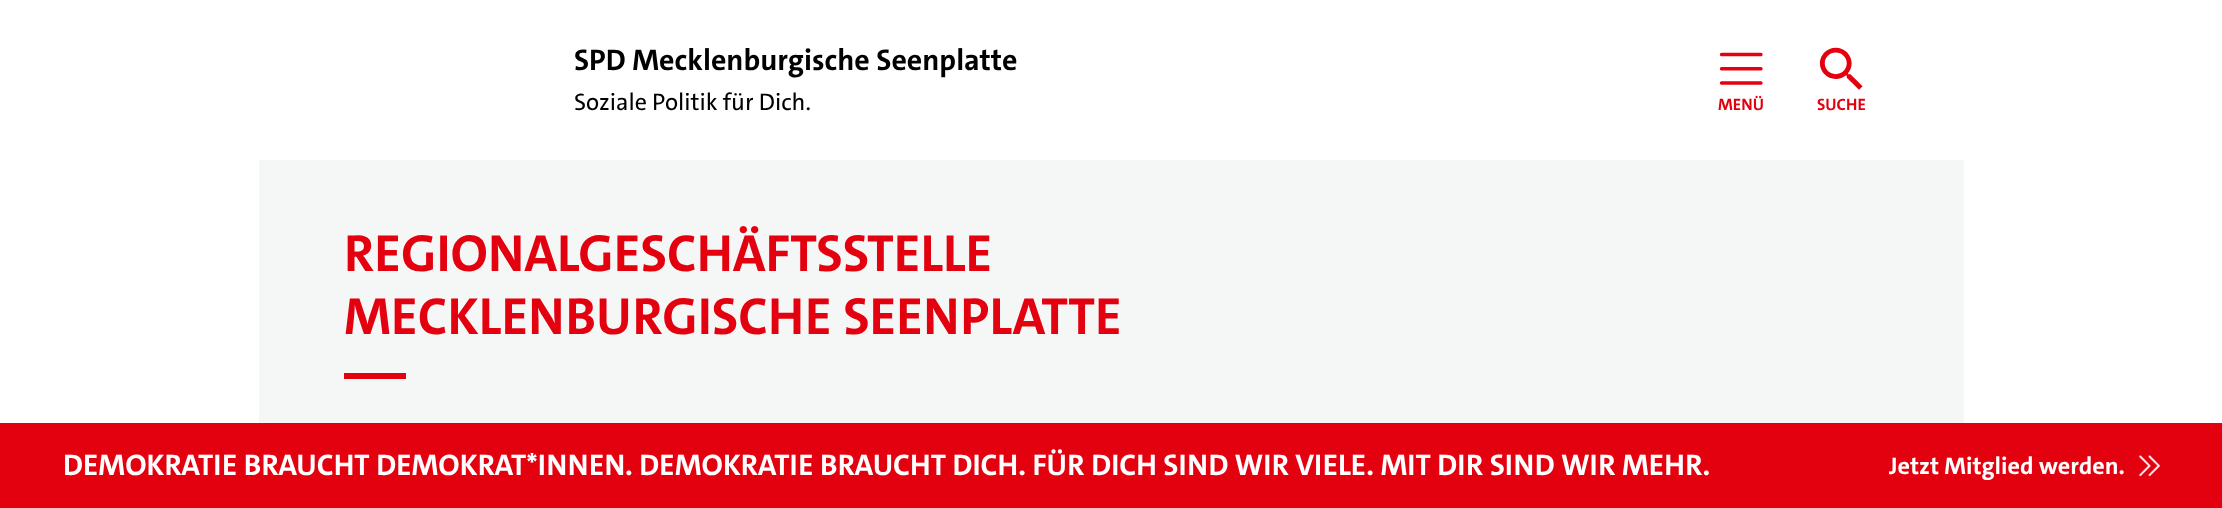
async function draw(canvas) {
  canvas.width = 2222;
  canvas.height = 508;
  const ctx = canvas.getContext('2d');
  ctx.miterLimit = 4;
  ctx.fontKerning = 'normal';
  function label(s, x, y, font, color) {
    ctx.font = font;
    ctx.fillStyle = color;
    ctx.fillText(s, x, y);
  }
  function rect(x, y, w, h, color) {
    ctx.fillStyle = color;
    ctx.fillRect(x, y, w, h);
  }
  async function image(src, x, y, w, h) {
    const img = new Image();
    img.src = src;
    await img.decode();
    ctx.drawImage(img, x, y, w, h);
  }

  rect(0, 0, 2222, 508, '#fff');
  label('SPD Mecklenburgische Seenplatte', 574, 70, 'bold 30px "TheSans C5"', '#000');
  label('Soziale Politik für Dich.', 574, 110, '500 24px "TheSans C5"', '#000');
  await image('assets/img1.png', 1719, 52, 44, 33);
  label('MENÜ', 1718, 110, 'bold 16.5px "TheSans C5"', '#e3000f');
  await image('assets/img2.png', 1819, 47, 44, 43);
  label('SUCHE', 1817, 110, 'bold 16.5px "TheSans C5"', '#e3000f');
  rect(259, 160, 1705, 263, '#f5f6f6');
  label('REGIONALGESCHÄFTSSTELLE', 344, 271, 'bold 52.5px "TheSans C5"', '#e3000f');
  label('MECKLENBURGISCHE SEENPLATTE', 344, 334, 'bold 52.5px "TheSans C5"', '#e3000f');
  rect(344, 373, 62, 6, '#e3000f');
  rect(0, 423, 2222, 85, '#e3000f');
  label('DEMOKRATIE BRAUCHT DEMOKRAT*INNEN. DEMOKRATIE BRAUCHT DICH. FÜR DICH SIND WIR VIELE. MIT DIR SIND WIR MEHR.', 63, 475, 'bold 30px "TheSans C5"', '#fff');
  label('Jetzt Mitglied werden.', 1889, 474, 'bold 24.25px "TheSans C5"', '#fff');
  await image('assets/img3.png', 2138, 455, 22, 21);
}

draw(document.querySelector('canvas'));
